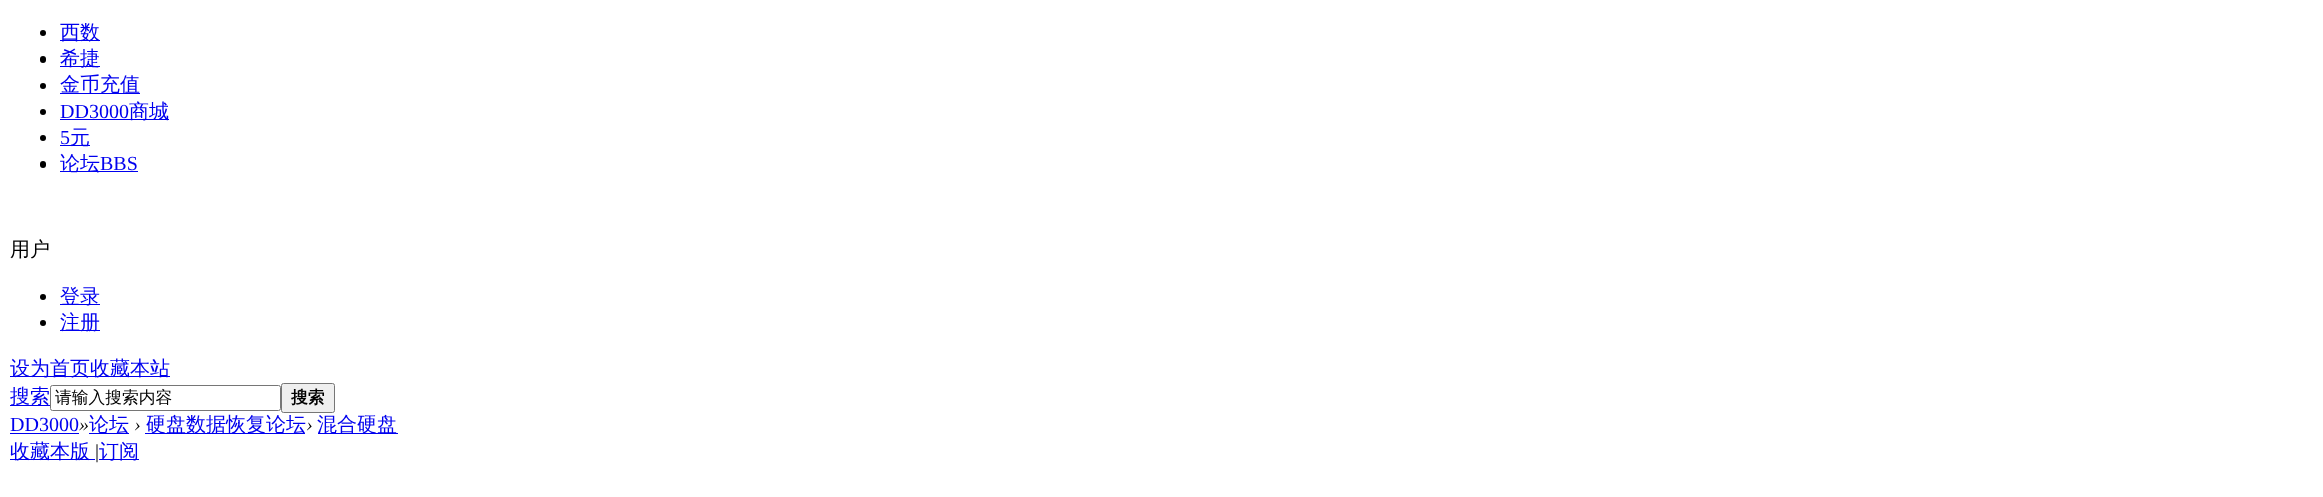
async function draw(canvas) {
  canvas.width = 2323;
  canvas.height = 497;
  const ctx = canvas.getContext('2d');
  ctx.miterLimit = 4;
  ctx.fontKerning = 'normal';
  function label(s, x, y, font, color) {
    ctx.font = font;
    ctx.fillStyle = color;
    ctx.fillText(s, x, y);
  }
  function rect(x, y, w, h, color) {
    ctx.fillStyle = color;
    ctx.fillRect(x, y, w, h);
  }
  function roundedRect(x, y, w, h, r, color) {
    ctx.fillStyle = color;
    ctx.beginPath();
    ctx.roundRect(x, y, w, h, r);
    ctx.fill();
  }

  rect(0, 0, 2323, 497, '#fff');
  ctx.fillStyle = '#000';
  ctx.beginPath();
  ctx.arc(43, 33, 3, 0, 2 * Math.PI);
  ctx.fill();
  rect(60, 40, 40, 1, '#00e');
  label('西数', 60, 39, '500 20px WenQuanYi Zen Hei', '#00e');
  roundedRect(40, 56, 6, 7, 3, '#000');
  rect(60, 66, 40, 1, '#00e');
  label('希捷', 60, 65, '500 20px WenQuanYi Zen Hei', '#00e');
  ctx.fillStyle = '#000';
  ctx.beginPath();
  ctx.arc(43, 86, 3, 0, 2 * Math.PI);
  ctx.fill();
  rect(60, 93, 80, 1, '#00e');
  label('金币充值', 60, 91, '500 20px WenQuanYi Zen Hei', '#00e');
  ctx.fillStyle = '#000';
  ctx.beginPath();
  ctx.arc(43, 112, 3, 0, 2 * Math.PI);
  ctx.fill();
  label('DD3000', 60, 118, '20px Liberation Serif', '#00e');
  rect(60, 119, 109, 1, '#00e');
  label('商城', 129, 118, '500 20px WenQuanYi Zen Hei', '#00e');
  ctx.fillStyle = '#000';
  ctx.beginPath();
  ctx.arc(43, 138, 3, 0, 2 * Math.PI);
  ctx.fill();
  label('5', 60, 144, '20px Liberation Serif', '#00e');
  rect(60, 145, 30, 1, '#00e');
  label('元', 70, 144, '500 20px WenQuanYi Zen Hei', '#00e');
  roundedRect(40, 161, 6, 7, 3, '#000');
  rect(60, 171, 78, 1, '#00e');
  label('论坛', 60, 170, '500 20px WenQuanYi Zen Hei', '#00e');
  label('BBS', 100, 170, '20px Liberation Serif', '#00e');
  label('用户', 10, 256, '500 20px WenQuanYi Zen Hei', '#000');
  ctx.beginPath();
  ctx.arc(43, 297, 3, 0, 2 * Math.PI);
  ctx.fill();
  rect(60, 304, 40, 1, '#00e');
  label('登录', 60, 303, '500 20px WenQuanYi Zen Hei', '#00e');
  ctx.fillStyle = '#000';
  ctx.beginPath();
  ctx.arc(43, 323, 3, 0, 2 * Math.PI);
  ctx.fill();
  rect(60, 330, 40, 1, '#00e');
  label('注册', 60, 329, '500 20px WenQuanYi Zen Hei', '#00e');
  rect(10, 376, 160, 1, '#00e');
  label('设为首页收藏本站', 10, 375, '500 20px WenQuanYi Zen Hei', '#00e');
  rect(10, 405, 40, 1, '#00e');
  label('搜索', 10, 403, '500 20px WenQuanYi Zen Hei', '#00e');
  ctx.beginPath();
  ctx.roundRect(50.5, 385.5, 230, 25, 2);
  ctx.strokeStyle = '#767676';
  ctx.stroke();
  label('请输入搜索内容', 55, 403, '500 16.75px WenQuanYi Zen Hei', '#000');
  ctx.fillStyle = '#efefef';
  ctx.beginPath();
  ctx.roundRect(281.5, 383.5, 53, 29, 2);
  ctx.fill();
  ctx.stroke();
  label('搜索', 291, 403, 'bold 16.75px WenQuanYi Zen Hei', '#000');
  label('DD3000', 10, 431, '20px Liberation Serif', '#00e');
  rect(10, 433, 69, 1, '#00e');
  label('»', 79, 431, 'italic 20px Liberation Serif', '#000');
  rect(89, 433, 40, 1, '#00e');
  label('论坛', 89, 431, '500 20px WenQuanYi Zen Hei', '#00e');
  label('›', 134, 431, 'italic 20px Liberation Serif', '#000');
  rect(145, 433, 160, 1, '#00e');
  label('硬盘数据恢复论坛', 146, 431, '500 20px WenQuanYi Zen Hei', '#00e');
  label('›', 306, 431, 'italic 20px Liberation Serif', '#000');
  rect(318, 433, 80, 1, '#00e');
  label('混合硬盘', 317, 431, '500 20px WenQuanYi Zen Hei', '#00e');
  rect(10, 459, 85, 1, '#00e');
  label('收藏本版', 10, 458, '500 20px WenQuanYi Zen Hei', '#00e');
  label('|', 95, 458, '20px Liberation Serif', '#000');
  rect(99, 459, 40, 1, '#00e');
  label('订阅', 99, 458, '500 20px WenQuanYi Zen Hei', '#00e');
}

draw(document.querySelector('canvas'));
